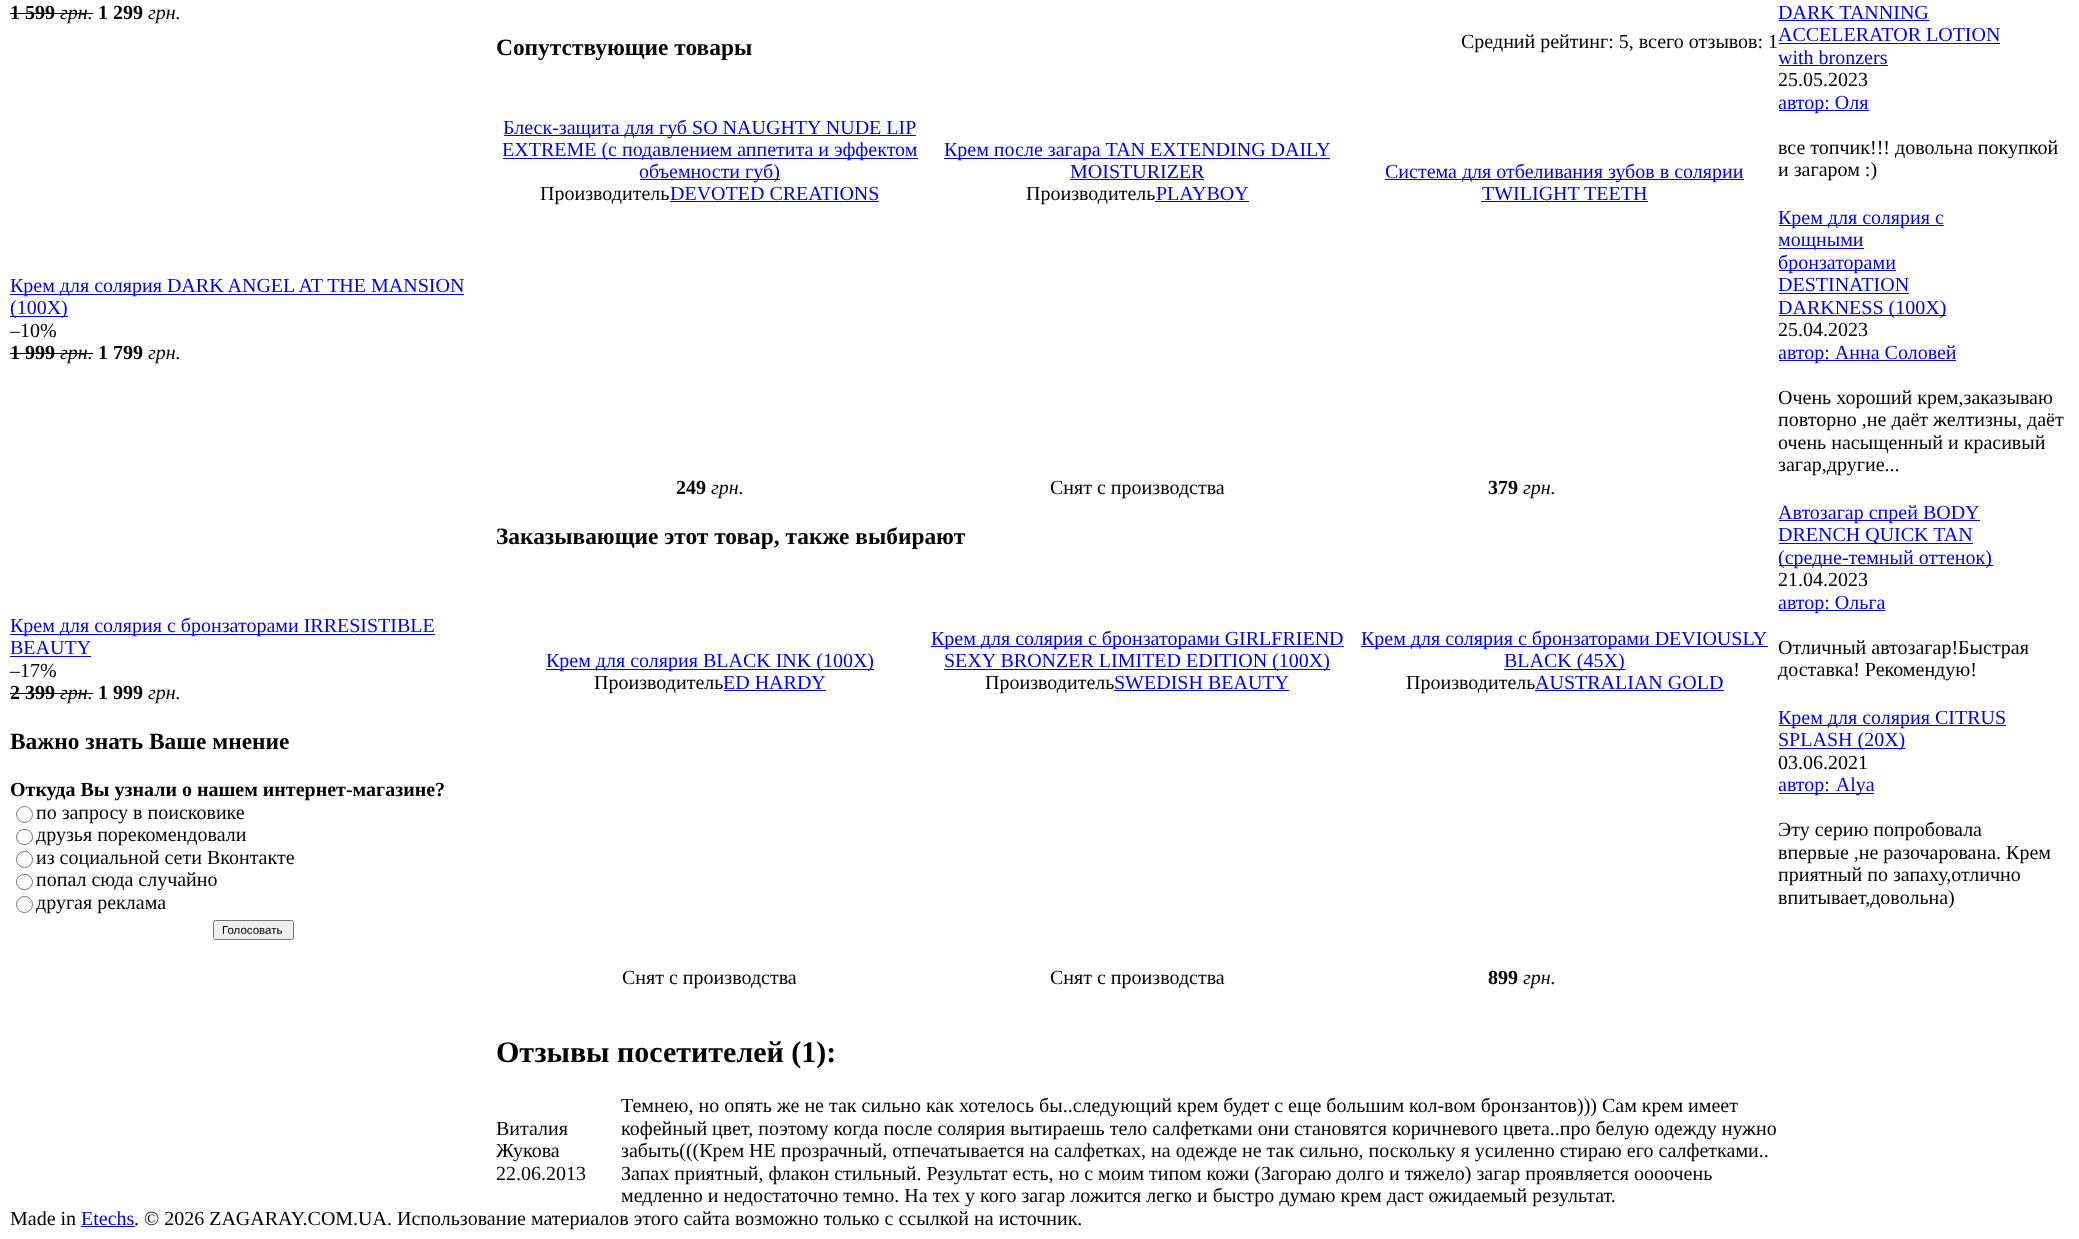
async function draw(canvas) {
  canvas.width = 2079;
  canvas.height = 1239;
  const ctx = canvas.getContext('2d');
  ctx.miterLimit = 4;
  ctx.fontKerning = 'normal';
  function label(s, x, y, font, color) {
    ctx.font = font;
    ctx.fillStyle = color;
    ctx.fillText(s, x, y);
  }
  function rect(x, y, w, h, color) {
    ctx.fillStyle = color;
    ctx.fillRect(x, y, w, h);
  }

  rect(0, 0, 2079, 1239, '#fff');
  label('1 599', 10, 19, 'bold 20px Liberation Serif', '#000');
  rect(10, 13, 45, 1, '#000');
  rect(55, 13, 38, 1, '#000');
  label('грн.', 60, 19, 'italic 20px Liberation Serif', '#000');
  label('1 299', 98, 19, 'bold 20px Liberation Serif', '#000');
  label('грн.', 148, 19, 'italic 20px Liberation Serif', '#000');
  rect(10, 294, 454, 1, '#00e');
  label('Крем для солярия DARK ANGEL AT THE MANSION', 10, 292, '20px Liberation Serif', '#00e');
  rect(10, 316, 58, 1, '#00e');
  label('(100X)', 10, 314, '20px Liberation Serif', '#00e');
  label('–10%', 10, 337, '20px Liberation Serif', '#000');
  label('1 999', 10, 359, 'bold 20px Liberation Serif', '#000');
  rect(10, 353, 45, 1, '#000');
  rect(55, 353, 38, 1, '#000');
  label('грн.', 60, 359, 'italic 20px Liberation Serif', '#000');
  label('1 799', 98, 359, 'bold 20px Liberation Serif', '#000');
  label('грн.', 148, 359, 'italic 20px Liberation Serif', '#000');
  rect(10, 634, 425, 1, '#00e');
  label('Крем для солярия с бронзаторами IRRESISTIBLE', 10, 632, '20px Liberation Serif', '#00e');
  label('BEAUTY', 10, 654, '20px Liberation Serif', '#00e');
  rect(10, 656, 81, 1, '#00e');
  label('–17%', 10, 677, '20px Liberation Serif', '#000');
  label('2 399', 10, 699, 'bold 20px Liberation Serif', '#000');
  rect(10, 693, 45, 1, '#000');
  rect(55, 693, 38, 1, '#000');
  label('грн.', 60, 699, 'italic 20px Liberation Serif', '#000');
  label('1 999', 98, 699, 'bold 20px Liberation Serif', '#000');
  label('грн.', 148, 699, 'italic 20px Liberation Serif', '#000');
  label('Важно знать Ваше мнение', 10, 749, 'bold 23.4px Liberation Serif', '#000');
  label('Откуда Вы узнали о нашем интернет-магазине?', 10, 796, 'bold 20px Liberation Serif', '#000');
  ctx.beginPath();
  ctx.arc(24.5, 814.5, 8, 0, 2 * Math.PI);
  ctx.strokeStyle = '#767676';
  ctx.stroke();
  label('по запросу в поисковике', 36, 819, '20px Liberation Serif', '#000');
  ctx.beginPath();
  ctx.roundRect(16.5, 829.5, 16, 15, 7.5);
  ctx.stroke();
  label('друзья порекомендовали', 36, 841, '20px Liberation Serif', '#000');
  ctx.beginPath();
  ctx.arc(24.5, 859.5, 8, 0, 2 * Math.PI);
  ctx.stroke();
  label('из социальной сети Вконтакте', 36, 864, '20px Liberation Serif', '#000');
  ctx.beginPath();
  ctx.roundRect(16.5, 874.5, 16, 15, 7.5);
  ctx.stroke();
  label('попал сюда случайно', 36, 886, '20px Liberation Serif', '#000');
  ctx.beginPath();
  ctx.arc(24.5, 904.5, 8, 0, 2 * Math.PI);
  ctx.stroke();
  label('другая реклама', 36, 909, '20px Liberation Serif', '#000');
  ctx.fillStyle = '#efefef';
  ctx.beginPath();
  ctx.roundRect(213.5, 920.5, 80, 19, 2);
  ctx.fill();
  ctx.stroke();
  label('Голосовать', 222, 934, '11.5px Liberation Sans', '#000');
  label('Средний рейтинг: 5, всего отзывов: 1', 1461, 48, '20px Liberation Serif', '#000');
  label('Сопутствующие товары', 496, 55, 'bold 23.4px Liberation Serif', '#000');
  rect(504, 135, 412, 1, '#00e');
  label('Блеск-защита для губ SO NAUGHTY NUDE LIP', 503, 134, '20px Liberation Serif', '#00e');
  rect(503, 158, 415, 1, '#00e');
  label('EXTREME (с подавлением аппетита и эффектом', 502, 156, '20px Liberation Serif', '#00e');
  rect(640, 179, 140, 1, '#00e');
  label('объемности губ)', 639, 178, '20px Liberation Serif', '#00e');
  label('Производитель', 540, 200, '20px Liberation Serif', '#000');
  rect(670, 201, 209, 1, '#00e');
  label('DEVOTED CREATIONS', 670, 200, '20px Liberation Serif', '#00e');
  label('249', 676, 494, 'bold 20px Liberation Serif', '#000');
  label('грн.', 711, 494, 'italic 20px Liberation Serif', '#000');
  rect(944, 158, 386, 1, '#00e');
  label('Крем после загара TAN EXTENDING DAILY', 944, 156, '20px Liberation Serif', '#00e');
  label('MOISTURIZER', 1070, 178, '20px Liberation Serif', '#00e');
  rect(1070, 179, 134, 1, '#00e');
  label('Производитель', 1026, 200, '20px Liberation Serif', '#000');
  rect(1155, 201, 94, 1, '#00e');
  label('PLAYBOY', 1156, 200, '20px Liberation Serif', '#00e');
  label('Снят с производства', 1050, 494, '20px Liberation Serif', '#000');
  rect(1385, 179, 359, 1, '#00e');
  label('Система для отбеливания зубов в солярии', 1385, 178, '20px Liberation Serif', '#00e');
  label('TWILIGHT TEETH', 1482, 200, '20px Liberation Serif', '#00e');
  rect(1481, 201, 167, 1, '#00e');
  label('379', 1488, 494, 'bold 20px Liberation Serif', '#000');
  label('грн.', 1523, 494, 'italic 20px Liberation Serif', '#000');
  label('Заказывающие этот товар, также выбирают', 496, 544, 'bold 23.4px Liberation Serif', '#000');
  rect(546, 669, 328, 1, '#00e');
  label('Крем для солярия BLACK INK (100X)', 546, 667, '20px Liberation Serif', '#00e');
  label('Производитель', 594, 689, '20px Liberation Serif', '#000');
  rect(724, 690, 102, 1, '#00e');
  label('ED HARDY', 723, 689, '20px Liberation Serif', '#00e');
  label('Снят с производства', 622, 984, '20px Liberation Serif', '#000');
  rect(931, 646, 413, 1, '#00e');
  label('Крем для солярия с бронзаторами GIRLFRIEND', 931, 645, '20px Liberation Serif', '#00e');
  rect(944, 669, 386, 1, '#00e');
  label('SEXY BRONZER LIMITED EDITION (100X)', 944, 667, '20px Liberation Serif', '#00e');
  label('Производитель', 985, 689, '20px Liberation Serif', '#000');
  rect(1114, 690, 175, 1, '#00e');
  label('SWEDISH BEAUTY', 1114, 689, '20px Liberation Serif', '#00e');
  label('Снят с производства', 1050, 984, '20px Liberation Serif', '#000');
  rect(1361, 646, 407, 1, '#00e');
  label('Крем для солярия с бронзаторами DEVIOUSLY', 1361, 645, '20px Liberation Serif', '#00e');
  rect(1504, 669, 121, 1, '#00e');
  label('BLACK (45X)', 1504, 667, '20px Liberation Serif', '#00e');
  label('Производитель', 1406, 689, '20px Liberation Serif', '#000');
  rect(1535, 690, 189, 1, '#00e');
  label('AUSTRALIAN GOLD', 1535, 689, '20px Liberation Serif', '#00e');
  label('899', 1488, 984, 'bold 20px Liberation Serif', '#000');
  label('грн.', 1523, 984, 'italic 20px Liberation Serif', '#000');
  label('Отзывы посетителей (1):', 496, 1062, 'bold 30px Liberation Serif', '#000');
  label('Виталия', 496, 1135, '20px Liberation Serif', '#000');
  label('Жукова', 496, 1157, '20px Liberation Serif', '#000');
  label('22.06.2013', 496, 1180, '20px Liberation Serif', '#000');
  label('Темнею, но опять же не так сильно как хотелось бы..следующий крем будет с еще большим кол-вом бронзантов))) Сам крем имеет', 621, 1112, '20px Liberation Serif', '#000');
  label('кофейный цвет, поэтому когда после солярия вытираешь тело салфетками они становятся коричневого цвета..про белую одежду нужно', 621, 1135, '20px Liberation Serif', '#000');
  label('забыть(((Крем НЕ прозрачный, отпечатывается на салфетках, на одежде не так сильно, поскольку я усиленно стираю его салфетками..', 621, 1157, '20px Liberation Serif', '#000');
  label('Запах приятный, флакон стильный. Результат есть, но с моим типом кожи (Загораю долго и тяжело) загар проявляется оооочень', 621, 1180, '20px Liberation Serif', '#000');
  label('медленно и недостаточно темно. На тех у кого загар ложится легко и быстро думаю крем даст ожидаемый результат.', 621, 1202, '20px Liberation Serif', '#000');
  label('DARK TANNING', 1778, 19, '20px Liberation Serif', '#00e');
  rect(1779, 20, 150, 1, '#00e');
  label('ACCELERATOR LOTION', 1778, 41, '20px Liberation Serif', '#00e');
  rect(1779, 43, 221, 1, '#00e');
  label('with bronzers', 1778, 64, '20px Liberation Serif', '#00e');
  rect(1779, 65, 109, 1, '#00e');
  label('25.05.2023', 1778, 86, '20px Liberation Serif', '#000');
  rect(1779, 110, 90, 1, '#00e');
  label('автор: Оля', 1778, 109, '20px Liberation Serif', '#00e');
  label('все топчик!!! довольна покупкой', 1778, 154, '20px Liberation Serif', '#000');
  label('и загаром :)', 1778, 176, '20px Liberation Serif', '#000');
  rect(1779, 225, 165, 1, '#00e');
  label('Крем для солярия с', 1778, 224, '20px Liberation Serif', '#00e');
  rect(1779, 248, 85, 1, '#00e');
  label('мощными', 1778, 246, '20px Liberation Serif', '#00e');
  rect(1779, 270, 117, 1, '#00e');
  label('бронзаторами', 1778, 269, '20px Liberation Serif', '#00e');
  label('DESTINATION', 1778, 291, '20px Liberation Serif', '#00e');
  rect(1779, 293, 130, 1, '#00e');
  rect(1779, 315, 167, 1, '#00e');
  label('DARKNESS (100X)', 1778, 314, '20px Liberation Serif', '#00e');
  label('25.04.2023', 1778, 336, '20px Liberation Serif', '#000');
  rect(1779, 360, 177, 1, '#00e');
  label('автор: Анна Соловей', 1778, 359, '20px Liberation Serif', '#00e');
  label('Очень хороший крем,заказываю', 1778, 404, '20px Liberation Serif', '#000');
  label('повторно ,не даёт желтизны, даёт', 1778, 426, '20px Liberation Serif', '#000');
  label('очень насыщенный и красивый', 1778, 449, '20px Liberation Serif', '#000');
  label('загар,другие...', 1778, 471, '20px Liberation Serif', '#000');
  rect(1779, 520, 201, 1, '#00e');
  label('Автозагар спрей BODY', 1778, 519, '20px Liberation Serif', '#00e');
  rect(1779, 543, 194, 1, '#00e');
  label('DRENCH QUICK TAN', 1778, 541, '20px Liberation Serif', '#00e');
  rect(1779, 565, 214, 1, '#00e');
  label('(средне-темный оттенок)', 1778, 564, '20px Liberation Serif', '#00e');
  label('21.04.2023', 1778, 586, '20px Liberation Serif', '#000');
  rect(1779, 610, 106, 1, '#00e');
  label('автор: Ольга', 1778, 609, '20px Liberation Serif', '#00e');
  label('Отличный автозагар!Быстрая', 1778, 654, '20px Liberation Serif', '#000');
  label('доставка! Рекомендую!', 1778, 676, '20px Liberation Serif', '#000');
  rect(1779, 725, 227, 1, '#00e');
  label('Крем для солярия CITRUS', 1778, 724, '20px Liberation Serif', '#00e');
  rect(1779, 748, 126, 1, '#00e');
  label('SPLASH (20X)', 1778, 746, '20px Liberation Serif', '#00e');
  label('03.06.2021', 1778, 769, '20px Liberation Serif', '#000');
  rect(1779, 793, 95, 1, '#00e');
  ctx.wordSpacing = '1px';
  label('автор: Alya', 1778, 791, '20px Liberation Serif', '#00e');
  ctx.wordSpacing = '0px';
  label('Эту серию попробовала', 1778, 836, '20px Liberation Serif', '#000');
  label('впервые ,не разочарована. Крем', 1778, 859, '20px Liberation Serif', '#000');
  label('приятный по запаху,отлично', 1778, 881, '20px Liberation Serif', '#000');
  label('впитывает,довольна)', 1778, 904, '20px Liberation Serif', '#000');
  label('Made in', 10, 1225, '20px Liberation Serif', '#000');
  label('Etechs', 81, 1225, '20px Liberation Serif', '#00e');
  rect(81, 1226, 54, 1, '#00e');
  label('. © 2026 ZAGARAY.COM.UA. Использование материалов этого сайта возможно только с ссылкой на источник.', 134, 1225, '20px Liberation Serif', '#000');
}

draw(document.querySelector('canvas'));
